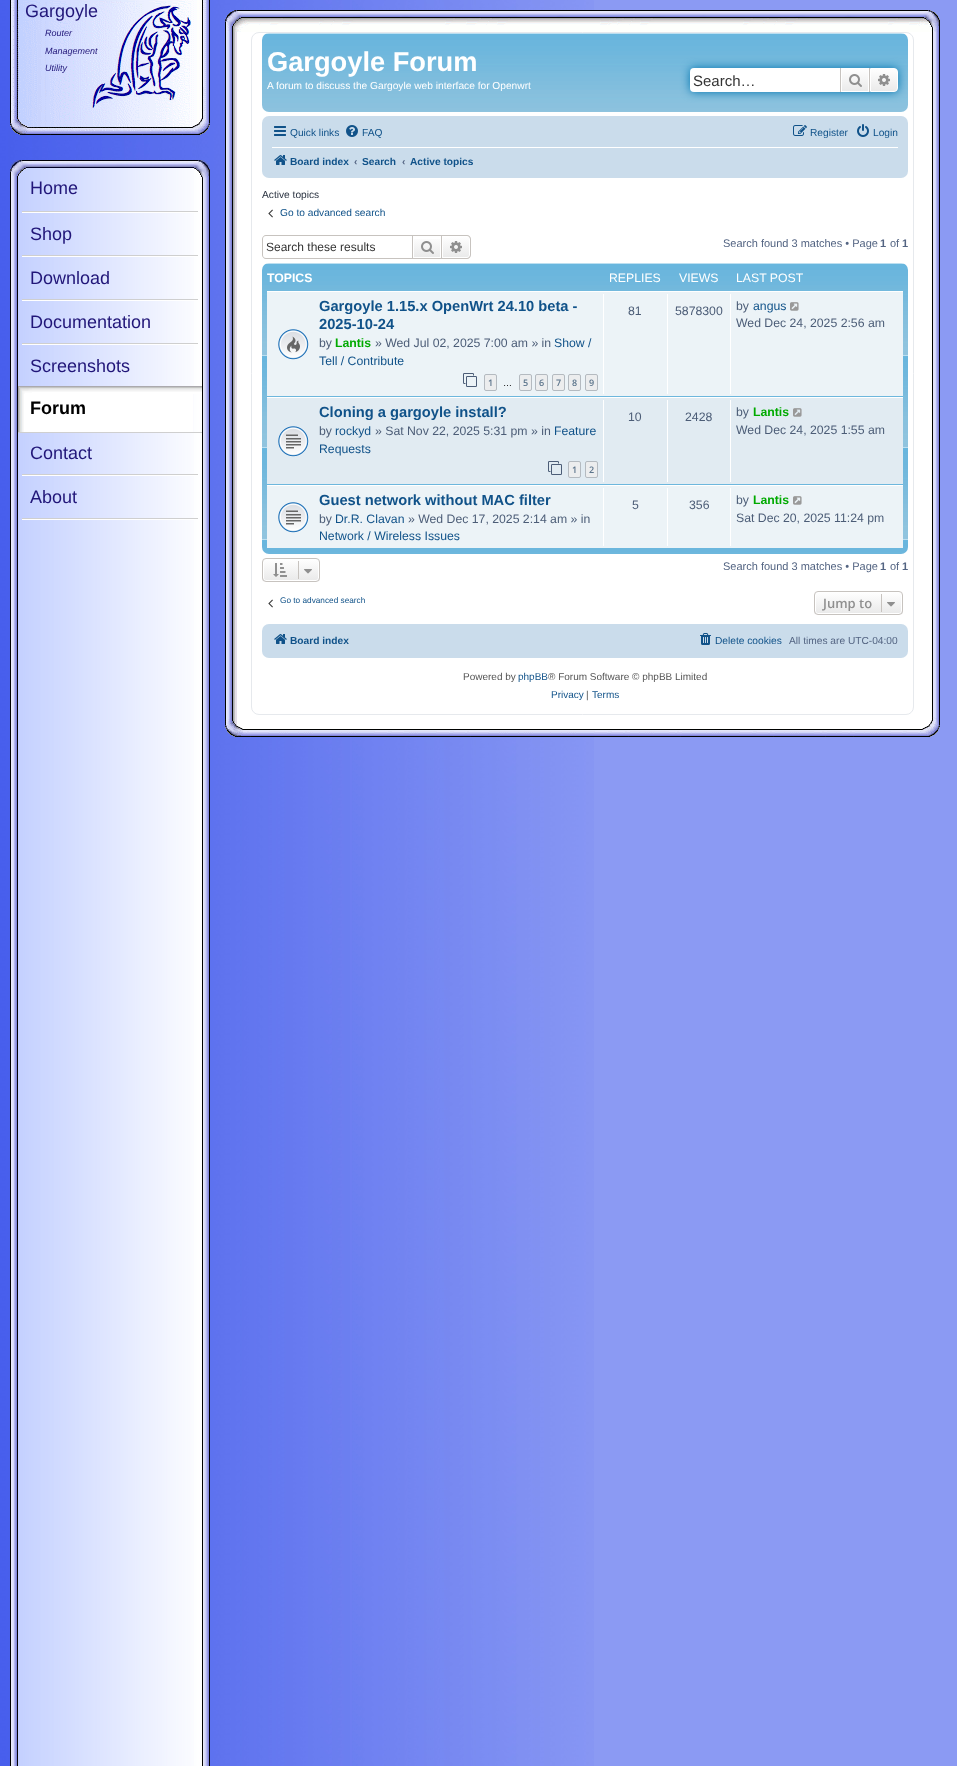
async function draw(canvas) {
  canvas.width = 957;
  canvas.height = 1766;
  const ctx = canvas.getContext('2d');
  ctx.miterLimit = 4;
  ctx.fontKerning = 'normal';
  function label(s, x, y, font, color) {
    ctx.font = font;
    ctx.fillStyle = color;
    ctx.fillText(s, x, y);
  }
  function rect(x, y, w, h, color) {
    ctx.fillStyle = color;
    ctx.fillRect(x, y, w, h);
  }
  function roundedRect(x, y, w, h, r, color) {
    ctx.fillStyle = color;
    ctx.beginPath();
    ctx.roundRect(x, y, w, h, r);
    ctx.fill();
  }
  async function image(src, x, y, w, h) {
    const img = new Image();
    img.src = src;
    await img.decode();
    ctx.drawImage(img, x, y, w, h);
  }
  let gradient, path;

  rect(0, 0, 957, 1766, '#8b9af3');
  await image('assets/img1.png', 0, 0, 594, 1766);
  await image('assets/img2.png', 0, 0, 210, 160);
  await image('assets/img3.png', 10, 0, 200, 135);
  label('Gargoyle', 25, 17, '18px Liberation Sans', '#211679');
  label('Router', 45, 36, 'italic 9px Liberation Sans', '#211679');
  label('Management', 45, 54, 'italic 9px Liberation Sans', '#211679');
  label('Utility', 45, 71, 'italic 9px Liberation Sans', '#211679');
  await image('assets/img4.png', 10, 160, 200, 8);
  await image('assets/img5.png', 10, 168, 200, 10);
  await image('assets/img34.png', 10, 178, 200, 1588);
  label('Home', 30, 194, '18px Liberation Sans', '#211679');
  await image('assets/img6.png', 22, 211, 176, 2);
  label('Shop', 30, 240, '18px Liberation Sans', '#211679');
  await image('assets/img6.png', 22, 255, 176, 2);
  label('Download', 30, 284, '18px Liberation Sans', '#211679');
  await image('assets/img6.png', 22, 299, 176, 2);
  label('Documentation', 30, 328, '18px Liberation Sans', '#211679');
  await image('assets/img6.png', 22, 343, 176, 2);
  label('Screenshots', 30, 372, '18px Liberation Sans', '#211679');
  await image('assets/img7.png', 18, 386, 184, 8);
  await image('assets/img8.png', 18, 394, 175, 38);
  label('Forum', 30, 414, 'bold 18px Liberation Sans', '#000');
  rect(18, 432, 184, 1, '#cfcfcf');
  label('Contact', 30, 459, '18px Liberation Sans', '#211679');
  await image('assets/img6.png', 22, 474, 176, 2);
  label('About', 30, 503, '18px Liberation Sans', '#211679');
  await image('assets/img6.png', 22, 518, 176, 2);
  await image('assets/img9.png', 225, 10, 715, 22);
  await image('assets/img10.png', 225, 32, 715, 683);
  ctx.beginPath();
  ctx.roundRect(251.5, 32.5, 662, 682, 7.5);
  ctx.strokeStyle = '#e6e9ed';
  ctx.stroke();
  await image('assets/img11.png', 262, 33, 646, 79);
  label('Gargoyle Forum', 267, 71, 'bold 27.25px Liberation Sans', '#fff');
  label('A forum to discuss the Gargoyle web interface for Openwrt', 267, 89, '10.2px Liberation Sans', '#fff');
  ctx.fillStyle = '#0075b0';
  ctx.filter = 'blur(5px)';
  ctx.beginPath();
  ctx.roundRect(690, 68, 208, 24, 4);
  ctx.fill();
  ctx.filter = 'none';
  ctx.fillStyle = '#fff';
  ctx.beginPath();
  ctx.roundRect(690, 68, 150, 24, [4, 0, 0, 4]);
  ctx.fill();
  label('Search…', 693, 86, '15px Liberation Sans', '#333');
  gradient = ctx.createLinearGradient(855, 68, 855, 92);
  gradient.addColorStop(0, '#fff');
  gradient.addColorStop(1, '#e9e9e9');
  ctx.fillStyle = gradient;
  ctx.fillRect(842, 69, 26, 22);
  ctx.strokeStyle = '#fff';
  ctx.strokeRect(841.5, 68.5, 27, 23);
  rect(869, 68, 1, 24, '#c7c3bf');
  rect(840, 68, 1, 24, '#c7c3bf');
  await image('assets/img12.png', 849, 74, 13, 13);
  gradient = ctx.createLinearGradient(884, 68, 884, 92);
  gradient.addColorStop(0, '#fff');
  gradient.addColorStop(1, '#e9e9e9');
  ctx.fillStyle = gradient;
  ctx.beginPath();
  ctx.roundRect(870.5, 68.5, 27, 23, [0, 3.5, 3.5, 0]);
  ctx.fill();
  ctx.stroke();
  await image('assets/img13.png', 878, 74, 12, 12);
  roundedRect(262, 116, 646, 62, 7, '#cadceb');
  await image('assets/img14.png', 274, 126, 12, 10);
  label('Quick links', 290, 136, '10.2px Liberation Sans', '#105289');
  await image('assets/img15.png', 346, 125, 12, 12);
  label('FAQ', 362, 136, '10.2px Liberation Sans', '#105289');
  await image('assets/img16.png', 793, 125, 14, 11);
  label('Register', 810, 136, '10.2px Liberation Sans', '#105289');
  await image('assets/img17.png', 857, 124, 12, 13);
  label('Login', 873, 136, '10.2px Liberation Sans', '#105289');
  rect(272, 147, 626, 1, '#fff');
  await image('assets/img18.png', 274, 155, 13, 10);
  label('Board index', 290, 165, 'bold 10.2px Liberation Sans', '#105289');
  label('‹', 354, 165, 'bold 10.2px Liberation Sans', '#536482');
  label('Search', 362, 165, 'bold 10.2px Liberation Sans', '#105289');
  label('‹', 402, 165, 'bold 10.2px Liberation Sans', '#536482');
  label('Active topics', 410, 165, 'bold 10.2px Liberation Sans', '#105289');
  label('Active topics', 262, 198, '10.2px Liberation Sans', '#28313f');
  await image('assets/img19.png', 268, 209, 5, 9);
  label('Go to advanced search', 280, 216, '10.2px Liberation Sans', '#105289');
  ctx.fillStyle = '#c7c3bf';
  path = new Path2D('M266 235H412V259H266C264 259 262 257 262 255V239C262 237 264 235 266 235ZM266 236H412V258H266C264 258 263 257 263 255V239C263 237 264 236 266 236Z');
  ctx.fill(path, 'evenodd');
  label('Search these results', 266, 251, '12px Liberation Sans', '#333');
  gradient = ctx.createLinearGradient(427, 236, 427, 258);
  gradient.addColorStop(0, '#fff');
  gradient.addColorStop(1, '#e9e9e9');
  ctx.fillStyle = gradient;
  ctx.fillRect(414, 239, 26, 18);
  ctx.strokeStyle = '#c7c3bf';
  ctx.strokeRect(412.5, 235.5, 29, 23);
  await image('assets/img20.png', 421, 241, 13, 13);
  gradient = ctx.createLinearGradient(456, 236, 456, 258);
  gradient.addColorStop(0, '#fff');
  gradient.addColorStop(1, '#e9e9e9');
  ctx.fillStyle = gradient;
  ctx.beginPath();
  ctx.roundRect(442.5, 236.5, 27, 21, [0, 2.5, 2.5, 0]);
  ctx.fill();
  ctx.strokeStyle = '#fff';
  ctx.stroke();
  ctx.fillStyle = '#c7c3bf';
  path = new Path2D('M442 235H467C469 235 471 237 471 239V255C471 257 469 259 467 259H442ZM442 236H467C468.5 236 470 237.5 470 239V255C470 256.5 468.5 258 467 258H442Z');
  ctx.fill(path, 'evenodd');
  await image('assets/img21.png', 450, 241, 12, 12);
  label('Search found 3 matches • Page', 723, 247, '11px Liberation Sans', '#536482');
  label('1', 880, 247, 'bold 11px Liberation Sans', '#536482');
  label('of', 890, 247, '11px Liberation Sans', '#536482');
  label('1', 902, 247, 'bold 11px Liberation Sans', '#536482');
  await image('assets/img22.png', 262, 263, 646, 291);
  label('TOPICS', 267, 282, 'bold 12.25px Liberation Sans', '#fff');
  label('REPLIES', 609, 282, '12.25px Liberation Sans', '#fff');
  label('VIEWS', 679, 282, '12.25px Liberation Sans', '#fff');
  label('LAST POST', 736, 282, '12.25px Liberation Sans', '#fff');
  rect(267, 292, 636, 104, '#ecf3f7');
  rect(267, 291, 636, 1, '#fff');
  rect(267, 396, 636, 1, '#6db7dd');
  await image('assets/img23.png', 278, 329, 31, 31);
  label('Gargoyle 1.15.x OpenWrt 24.10 beta -', 319, 311, 'bold 14.7px Liberation Sans', '#105289');
  label('2025-10-24', 319, 329, 'bold 14.7px Liberation Sans', '#105289');
  label('by', 319, 347, '12.25px Liberation Sans', '#4c5d77');
  label('Lantis', 335, 347, 'bold 12.25px Liberation Sans', '#0a0');
  label('» Wed Jul 02, 2025 7:00 am » in', 375, 347, '12.25px Liberation Sans', '#4c5d77');
  label('Show /', 554, 347, '12.25px Liberation Sans', '#105289');
  label('Tell / Contribute', 319, 365, '12.25px Liberation Sans', '#105289');
  await image('assets/img24.png', 463, 373, 14, 14);
  ctx.fillStyle = '#ecedee';
  ctx.beginPath();
  ctx.roundRect(484.5, 374.5, 12, 16, 1.5);
  ctx.fill();
  ctx.strokeStyle = '#b4bac0';
  ctx.stroke();
  label('1', 488, 386, '600 9px Open Sans', '#5c758c');
  label('…', 503, 386, '9px Liberation Sans', '#000');
  ctx.fillStyle = '#ecedee';
  ctx.beginPath();
  ctx.roundRect(519.5, 374.5, 12, 16, 1.5);
  ctx.fill();
  ctx.stroke();
  label('5', 523, 386, '600 9px Open Sans', '#5c758c');
  ctx.fillStyle = '#ecedee';
  ctx.beginPath();
  ctx.roundRect(535.5, 374.5, 12, 16, 1.5);
  ctx.fill();
  ctx.stroke();
  label('6', 539, 386, '600 9px Open Sans', '#5c758c');
  ctx.fillStyle = '#ecedee';
  ctx.beginPath();
  ctx.roundRect(552.5, 374.5, 12, 16, 1.5);
  ctx.fill();
  ctx.stroke();
  label('7', 556, 386, '600 9px Open Sans', '#5c758c');
  ctx.fillStyle = '#ecedee';
  ctx.beginPath();
  ctx.roundRect(568.5, 374.5, 12, 16, 1.5);
  ctx.fill();
  ctx.stroke();
  label('8', 572, 386, '600 9px Open Sans', '#5c758c');
  ctx.fillStyle = '#ecedee';
  ctx.beginPath();
  ctx.roundRect(585.5, 374.5, 12, 16, 1.5);
  ctx.fill();
  ctx.stroke();
  label('9', 589, 386, '600 9px Open Sans', '#5c758c');
  rect(603, 294, 1, 100, '#fff');
  label('81', 628, 315, '12.25px Liberation Sans', '#4c5d77');
  rect(667, 294, 1, 100, '#fff');
  label('5878300', 675, 315, '12.25px Liberation Sans', '#4c5d77');
  rect(730, 294, 1, 100, '#fff');
  label('by', 736, 310, '12.25px Liberation Sans', '#4c5d77');
  label('angus', 753, 310, '12.25px Liberation Sans', '#105289');
  await image('assets/img25.png', 790, 302, 9, 9);
  label('Wed Dec 24, 2025 2:56 am', 736, 327, '12.25px Liberation Sans', '#4c5d77');
  rect(267, 398, 636, 86, '#e1ebf2');
  rect(267, 397, 636, 1, '#fff');
  rect(267, 484, 636, 1, '#6db7dd');
  await image('assets/img26.png', 278, 426, 31, 31);
  label('Cloning a gargoyle install?', 319, 417, 'bold 14.7px Liberation Sans', '#105289');
  label('by', 319, 435, '12.25px Liberation Sans', '#4c5d77');
  label('rockyd', 335, 435, '12.25px Liberation Sans', '#105289');
  label('» Sat Nov 22, 2025 5:31 pm » in', 375, 435, '12.25px Liberation Sans', '#4c5d77');
  label('Feature', 554, 435, '12.25px Liberation Sans', '#105289');
  label('Requests', 319, 453, '12.25px Liberation Sans', '#105289');
  await image('assets/img27.png', 548, 461, 14, 14);
  ctx.fillStyle = '#ecedee';
  ctx.beginPath();
  ctx.roundRect(568.5, 461.5, 12, 16, 1.5);
  ctx.fill();
  ctx.stroke();
  label('1', 572, 473, '600 9px Open Sans', '#5c758c');
  ctx.fillStyle = '#ecedee';
  ctx.beginPath();
  ctx.roundRect(585.5, 461.5, 12, 16, 1.5);
  ctx.fill();
  ctx.stroke();
  label('2', 589, 473, '600 9px Open Sans', '#5c758c');
  rect(603, 400, 1, 82, '#fff');
  label('10', 628, 421, '12.25px Liberation Sans', '#4c5d77');
  rect(667, 400, 1, 82, '#fff');
  label('2428', 685, 421, '12.25px Liberation Sans', '#4c5d77');
  rect(730, 400, 1, 82, '#fff');
  label('by', 736, 416, '12.25px Liberation Sans', '#4c5d77');
  label('Lantis', 753, 416, 'bold 12.25px Liberation Sans', '#0a0');
  await image('assets/img28.png', 793, 408, 9, 9);
  label('Wed Dec 24, 2025 1:55 am', 736, 434, '12.25px Liberation Sans', '#4c5d77');
  rect(267, 486, 636, 62, '#ecf3f7');
  rect(267, 485, 636, 1, '#fff');
  await image('assets/img29.png', 278, 502, 31, 31);
  label('Guest network without MAC filter', 319, 505, 'bold 14.7px Liberation Sans', '#105289');
  label('by', 319, 523, '12.25px Liberation Sans', '#4c5d77');
  label('Dr.R. Clavan', 335, 523, '12.25px Liberation Sans', '#105289');
  label('» Wed Dec 17, 2025 2:14 am » in', 408, 523, '12.25px Liberation Sans', '#4c5d77');
  label('Network / Wireless Issues', 319, 540, '12.25px Liberation Sans', '#105289');
  rect(603, 488, 1, 58, '#fff');
  label('5', 632, 509, '12.25px Liberation Sans', '#4c5d77');
  rect(667, 488, 1, 58, '#fff');
  label('356', 689, 509, '12.25px Liberation Sans', '#4c5d77');
  rect(730, 488, 1, 58, '#fff');
  label('by', 736, 504, '12.25px Liberation Sans', '#4c5d77');
  label('Lantis', 753, 504, 'bold 12.25px Liberation Sans', '#0a0');
  await image('assets/img25.png', 793, 496, 9, 9);
  label('Sat Dec 20, 2025 11:24 pm', 736, 522, '12.25px Liberation Sans', '#4c5d77');
  ctx.save();
  ctx.beginPath();
  ctx.roundRect(262, 558, 58, 24, 4);
  ctx.clip();
  gradient = ctx.createLinearGradient(291, 559, 291, 581);
  gradient.addColorStop(0, '#fff');
  gradient.addColorStop(1, '#e9e9e9');
  ctx.fillStyle = gradient;
  ctx.fillRect(262, 559, 58, 22);
  ctx.restore();
  ctx.beginPath();
  ctx.roundRect(263.5, 559.5, 55, 21, 2.5);
  ctx.strokeStyle = '#fff';
  ctx.stroke();
  ctx.beginPath();
  ctx.roundRect(262.5, 558.5, 57, 23, 3.5);
  ctx.strokeStyle = '#c7c3bf';
  ctx.stroke();
  await image('assets/img30.png', 273, 563, 14, 14);
  rect(298, 561, 1, 18, '#c7c3bf');
  await image('assets/img31.png', 304, 569, 8, 5);
  label('Search found 3 matches • Page', 723, 570, '11px Liberation Sans', '#536482');
  label('1', 880, 570, 'bold 11px Liberation Sans', '#536482');
  label('of', 890, 570, '11px Liberation Sans', '#536482');
  label('1', 902, 570, 'bold 11px Liberation Sans', '#536482');
  await image('assets/img19.png', 268, 599, 5, 9);
  label('Go to advanced search', 280, 603, '8.25px Liberation Sans', '#105289');
  ctx.save();
  ctx.beginPath();
  ctx.roundRect(814, 591, 89, 24, 4);
  ctx.clip();
  gradient = ctx.createLinearGradient(859, 592, 859, 614);
  gradient.addColorStop(0, '#fff');
  gradient.addColorStop(1, '#e9e9e9');
  ctx.fillStyle = gradient;
  ctx.fillRect(814, 592, 89, 22);
  ctx.restore();
  ctx.beginPath();
  ctx.roundRect(815.5, 592.5, 86, 21, 2.5);
  ctx.strokeStyle = '#fff';
  ctx.stroke();
  ctx.beginPath();
  ctx.roundRect(814.5, 591.5, 88, 23, 3.5);
  ctx.strokeStyle = '#c7c3bf';
  ctx.stroke();
  label('Jump to', 823, 608, '600 13px Open Sans', '#8f8f8f');
  rect(881, 594, 1, 18, '#c7c3bf');
  await image('assets/img31.png', 887, 602, 8, 5);
  roundedRect(262, 624, 646, 34, 7, '#cadceb');
  await image('assets/img18.png', 274, 634, 13, 10);
  label('Board index', 290, 644, 'bold 10.2px Liberation Sans', '#105289');
  await image('assets/img32.png', 700, 633, 11, 12);
  label('Delete cookies', 715, 644, '10.2px Liberation Sans', '#105289');
  label('All times are UTC-04:00', 789, 644, '10.2px Liberation Sans', '#536482');
  label('Powered by', 463, 680, '10px Liberation Sans', '#555');
  label('phpBB', 518, 680, '10px Liberation Sans', '#105289');
  label('® Forum Software © phpBB Limited', 548, 680, '10px Liberation Sans', '#555');
  label('Privacy', 551, 698, '10px Liberation Sans', '#105289');
  label('|', 586, 698, '10px Liberation Sans', '#555');
  label('Terms', 592, 698, '10px Liberation Sans', '#105289');
  await image('assets/img33.png', 225, 715, 715, 22);
}

draw(document.querySelector('canvas'));
